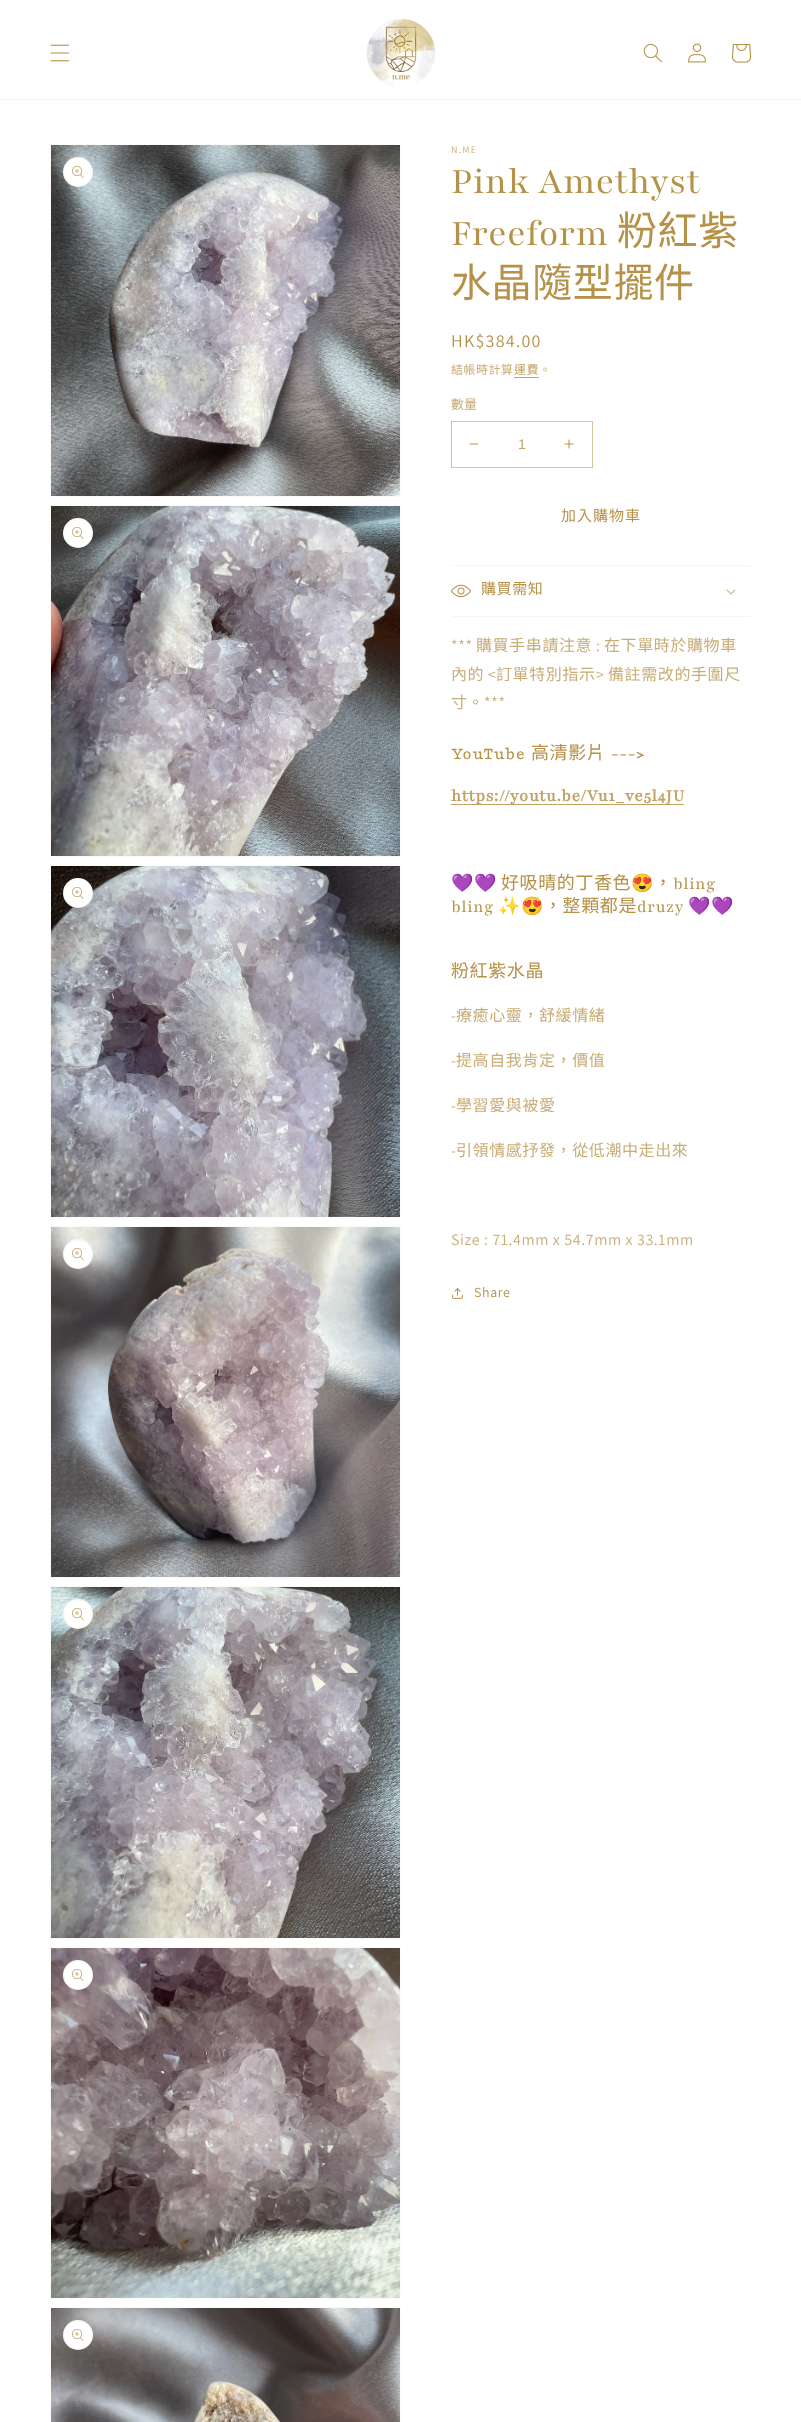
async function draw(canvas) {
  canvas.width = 801;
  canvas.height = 2422;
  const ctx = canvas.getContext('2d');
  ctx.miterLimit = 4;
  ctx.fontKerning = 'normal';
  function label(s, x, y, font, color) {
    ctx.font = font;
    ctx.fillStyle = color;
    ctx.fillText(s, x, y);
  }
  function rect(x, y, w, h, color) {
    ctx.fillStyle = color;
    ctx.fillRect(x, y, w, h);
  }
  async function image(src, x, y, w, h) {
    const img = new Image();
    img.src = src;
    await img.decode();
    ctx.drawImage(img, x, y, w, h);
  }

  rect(0, 0, 801, 2422, '#fff');
  rect(0, 99, 801, 1, '#f9f6f0');
  await image('assets/img1.png', 50, 44, 20, 18);
  await image('assets/img2.png', 366, 18, 70, 69);
  await image('assets/img3.png', 643, 43, 19, 20);
  await image('assets/img4.png', 688, 43, 18, 20);
  await image('assets/img5.png', 732, 44, 20, 19);
  ctx.strokeStyle = '#fbfaf6';
  ctx.strokeRect(50.5, 144.5, 350, 352);
  await image('assets/img6.png', 51, 145, 349, 351);
  ctx.fillStyle = '#fff';
  ctx.beginPath();
  ctx.arc(78, 172, 15, 0, 2 * Math.PI);
  ctx.fill();
  ctx.beginPath();
  ctx.arc(78, 172, 14.5, 0, 2 * Math.PI);
  ctx.strokeStyle = '#b692491a';
  ctx.stroke();
  await image('assets/img7.png', 72, 166, 12, 12);
  ctx.strokeStyle = '#fbfaf6';
  ctx.strokeRect(50.5, 505.5, 350, 351);
  await image('assets/img8.png', 51, 506, 349, 350);
  ctx.beginPath();
  ctx.arc(78, 533, 15, 0, 2 * Math.PI);
  ctx.fill();
  ctx.beginPath();
  ctx.arc(78, 533, 14.5, 0, 2 * Math.PI);
  ctx.strokeStyle = '#b692491a';
  ctx.stroke();
  await image('assets/img7.png', 72, 527, 12, 12);
  ctx.strokeStyle = '#fbfaf6';
  ctx.strokeRect(50.5, 865.5, 350, 352);
  await image('assets/img9.png', 51, 866, 349, 351);
  ctx.beginPath();
  ctx.arc(78, 893, 15, 0, 2 * Math.PI);
  ctx.fill();
  ctx.beginPath();
  ctx.arc(78, 893, 14.5, 0, 2 * Math.PI);
  ctx.strokeStyle = '#b692491a';
  ctx.stroke();
  await image('assets/img7.png', 72, 887, 12, 12);
  ctx.strokeStyle = '#fbfaf6';
  ctx.strokeRect(50.5, 1226.5, 350, 351);
  await image('assets/img10.png', 51, 1227, 349, 350);
  ctx.beginPath();
  ctx.arc(78, 1254, 15, 0, 2 * Math.PI);
  ctx.fill();
  ctx.beginPath();
  ctx.arc(78, 1254, 14.5, 0, 2 * Math.PI);
  ctx.strokeStyle = '#b692491a';
  ctx.stroke();
  await image('assets/img7.png', 72, 1248, 12, 12);
  ctx.strokeStyle = '#fbfaf6';
  ctx.strokeRect(50.5, 1586.5, 350, 352);
  await image('assets/img11.png', 51, 1587, 349, 351);
  ctx.beginPath();
  ctx.arc(78, 1614, 15, 0, 2 * Math.PI);
  ctx.fill();
  ctx.beginPath();
  ctx.arc(78, 1614, 14.5, 0, 2 * Math.PI);
  ctx.strokeStyle = '#b692491a';
  ctx.stroke();
  await image('assets/img7.png', 72, 1608, 12, 12);
  ctx.strokeStyle = '#fbfaf6';
  ctx.strokeRect(50.5, 1947.5, 350, 351);
  await image('assets/img12.png', 51, 1948, 349, 350);
  ctx.beginPath();
  ctx.arc(78, 1975, 15, 0, 2 * Math.PI);
  ctx.fill();
  ctx.beginPath();
  ctx.arc(78, 1975, 14.5, 0, 2 * Math.PI);
  ctx.strokeStyle = '#b692491a';
  ctx.stroke();
  await image('assets/img7.png', 72, 1969, 12, 12);
  ctx.strokeStyle = '#fbfaf6';
  ctx.strokeRect(50.5, 2307.5, 350, 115);
  await image('assets/img13.png', 51, 2308, 349, 114);
  ctx.beginPath();
  ctx.arc(78, 2335, 15, 0, 2 * Math.PI);
  ctx.fill();
  ctx.beginPath();
  ctx.arc(78, 2335, 14.5, 0, 2 * Math.PI);
  ctx.strokeStyle = '#b692491a';
  ctx.stroke();
  await image('assets/img7.png', 72, 2329, 12, 12);
  ctx.letterSpacing = '1.25px';
  label('N.ME', 451, 153, '10px Assistant', '#c8ad77');
  ctx.letterSpacing = '0.6px';
  label('Pink Amethyst', 451, 193, '40px Playfair', '#b69249');
  label('Freeform', 451, 245, '40px Playfair', '#b69249');
  label('粉紅紫', 617, 245, '40px Noto Sans CJK TC', '#b69249');
  label('水晶隨型擺件', 451, 297, '40px Noto Sans CJK TC', '#b69249');
  ctx.letterSpacing = '1.25px';
  label('HK$384.00', 451, 347, '18px Assistant', '#b69249');
  ctx.letterSpacing = '0.5px';
  label('結帳時計算', 451, 374, '12px Noto Sans CJK TC', '#c8ad77');
  label('運費', 514, 374, '12px Noto Sans CJK TC', '#c1a264');
  rect(514, 377, 25, 1, '#c1a264');
  label('。', 539, 374, '12px Noto Sans CJK TC', '#c8ad77');
  ctx.letterSpacing = '0px';
  label('數量', 451, 409, '13px Noto Sans CJK TC', '#c8ad77');
  await image('assets/img14.png', 469, 443, 10, 2);
  await image('assets/img15.png', 564, 439, 10, 10);
  ctx.strokeStyle = '#d7c39b';
  ctx.strokeRect(451.5, 421.5, 141, 46);
  label('1', 518, 449, '14px Liberation Sans', '#c1a264');
  ctx.letterSpacing = '1px';
  label('加入購物車', 561, 521, '15px Noto Sans CJK TC', '#b69249');
  rect(451, 565, 300, 1, '#f9f6f0');
  rect(451, 616, 300, 1, '#f9f6f0');
  await image('assets/img16.png', 451, 584, 20, 14);
  ctx.letterSpacing = '0.6px';
  label('購買需知', 481, 594, '15px Noto Sans CJK TC', '#b69249');
  await image('assets/img17.png', 726, 589, 10, 6);
  label('***', 451, 651, '16px Assistant', '#c8ad77');
  label('購買手串請注意', 476, 651, '16px Noto Sans CJK TC', '#c8ad77');
  label('在下單時於購物車', 604, 651, '16px Noto Sans CJK TC', '#c8ad77');
  label(':', 596, 651, '16px Assistant', '#c8ad77');
  label('內的', 451, 680, '16px Noto Sans CJK TC', '#c8ad77');
  label('<', 488, 680, '16px Assistant', '#c8ad77');
  label('訂單特別指示', 496, 680, '16px Noto Sans CJK TC', '#c8ad77');
  label('>', 596, 680, '16px Assistant', '#c8ad77');
  label('備註需改的手圍尺', 608, 680, '16px Noto Sans CJK TC', '#c8ad77');
  label('寸。', 451, 708, '16px Noto Sans CJK TC', '#c8ad77');
  label('***', 484, 708, '16px Assistant', '#c8ad77');
  label('YouTube', 451, 759, '18px "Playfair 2"', '#b69249');
  label('高清影片', 531, 759, '18px Noto Sans CJK TC', '#b69249');
  label('--->', 611, 759, '18px "Playfair 2"', '#b69249');
  rect(451, 804, 233, 1, '#c1a264');
  label('https://youtu.be/Vu1_ve5l4JU', 451, 801, 'bold 18px Playfair', '#c1a264');
  label('💜💜', 451, 889, '18px Noto Color Emoji', '#b69249');
  label('好吸晴的丁香色', 501, 889, '18px Noto Sans CJK TC', '#b69249');
  label('😍', 631, 889, '18px Noto Color Emoji', '#b69249');
  label('，', 654, 889, '18px Noto Sans CJK TC', '#b69249');
  label('bling', 673, 889, '18px "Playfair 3"', '#b69249');
  label('bling', 451, 912, '18px "Playfair 3"', '#b69249');
  label('✨😍', 498, 912, '18px Noto Color Emoji', '#b69249');
  label('，整顆都是', 544, 912, '18px Noto Sans CJK TC', '#b69249');
  label('druzy', 637, 912, '18px "Playfair 3"', '#b69249');
  label('💜💜', 688, 912, '18px Noto Color Emoji', '#b69249');
  label('粉紅紫水晶', 451, 977, '18px Noto Sans CJK TC', '#b69249');
  label('-', 451, 1021, '16px Assistant', '#c8ad77');
  label('療癒心靈，舒緩情緒', 456, 1021, '16px Noto Sans CJK TC', '#c8ad77');
  label('-', 451, 1066, '16px Assistant', '#c8ad77');
  label('提高自我肯定，價值', 456, 1066, '16px Noto Sans CJK TC', '#c8ad77');
  label('-', 451, 1111, '16px Assistant', '#c8ad77');
  label('學習愛與被愛', 456, 1111, '16px Noto Sans CJK TC', '#c8ad77');
  label('-', 451, 1156, '16px Assistant', '#c8ad77');
  label('引領情感抒發，從低潮中走出來', 456, 1156, '16px Noto Sans CJK TC', '#c8ad77');
  label('Size : 71.4mm x 54.7mm x 33.1mm', 451, 1245, '16px Assistant', '#c8ad77');
  await image('assets/img18.png', 452, 1288, 11, 11);
  label('Share', 474, 1297, '14px Assistant', '#b69249');
}

draw(document.querySelector('canvas'));
